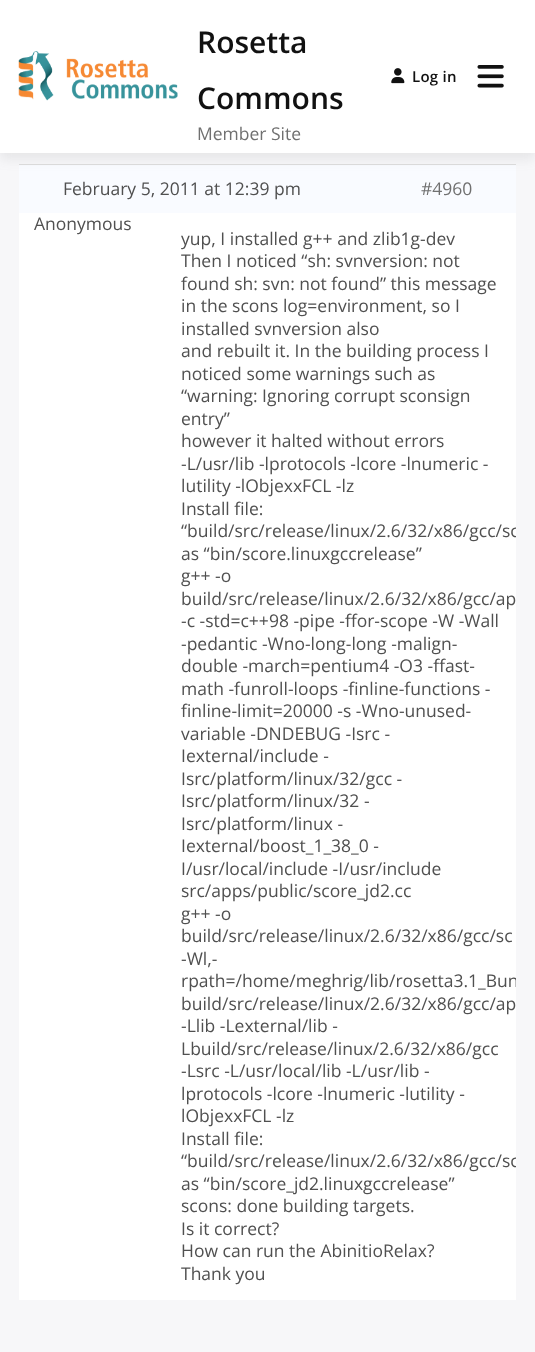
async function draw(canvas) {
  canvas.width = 535;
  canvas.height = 1352;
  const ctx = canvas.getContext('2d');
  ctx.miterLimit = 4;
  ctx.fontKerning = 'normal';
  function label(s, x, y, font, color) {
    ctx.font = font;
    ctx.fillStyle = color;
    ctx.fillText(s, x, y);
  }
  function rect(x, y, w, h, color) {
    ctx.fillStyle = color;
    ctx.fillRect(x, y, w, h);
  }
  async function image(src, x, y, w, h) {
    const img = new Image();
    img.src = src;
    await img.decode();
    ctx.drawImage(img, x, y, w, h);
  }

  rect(0, 0, 535, 1352, '#f7f7f9');
  rect(19, 165, 497, 48, '#f9fbff');
  rect(19, 164, 497, 1, '#ddd');
  ctx.fillStyle = '#84848426';
  ctx.filter = 'blur(6px)';
  ctx.beginPath();
  ctx.rect(0, 6, 535, 153);
  ctx.fill();
  ctx.filter = 'none';
  rect(0, 0, 535, 153, '#fff');
  await image('assets/img1.png', 18, 51, 160, 50);
  label('Rosetta', 197, 53, '600 30px Open Sans', '#111');
  label('Commons', 197, 109, '600 30px Open Sans', '#111');
  label('Member Site', 197, 140, '17.5px Open Sans', '#707070');
  await image('assets/img2.png', 391, 68, 14, 16);
  ctx.letterSpacing = '0.25px';
  label('Log in', 412, 82, '600 15px Open Sans', '#111');
  await image('assets/img3.png', 477, 65, 27, 23);
  ctx.letterSpacing = '0px';
  label('February 5, 2011 at 12:39 pm', 63, 195, '17.5px Open Sans', '#505050');
  label('#4960', 421, 195, '17.5px Open Sans', '#707070');
  rect(19, 213, 497, 1087, '#fff');
  label('Anonymous', 34, 230, '17.5px Open Sans', '#505050');
  label('yup, I installed g++ and zlib1g-dev', 181, 245, '17.5px Open Sans', '#505050');
  label('Then I noticed “sh: svnversion: not', 181, 267, '17.5px Open Sans', '#505050');
  label('found sh: svn: not found” this message', 181, 290, '17.5px Open Sans', '#505050');
  label('in the scons log=environment, so I', 181, 312, '17.5px Open Sans', '#505050');
  label('installed svnversion also', 181, 335, '17.5px Open Sans', '#505050');
  label('and rebuilt it. In the building process I', 181, 357, '17.5px Open Sans', '#505050');
  label('noticed some warnings such as', 181, 380, '17.5px Open Sans', '#505050');
  label('“warning: Ignoring corrupt sconsign', 181, 402, '17.5px Open Sans', '#505050');
  label('entry”', 181, 425, '17.5px Open Sans', '#505050');
  label('however it halted without errors', 181, 447, '17.5px Open Sans', '#505050');
  label('-L/usr/lib -lprotocols -lcore -lnumeric -', 181, 470, '17.5px Open Sans', '#505050');
  label('lutility -lObjexxFCL -lz', 181, 492, '17.5px Open Sans', '#505050');
  label('Install file:', 181, 515, '17.5px Open Sans', '#505050');
  ctx.save();
  ctx.beginPath();
  ctx.rect(19, 61, 497, 1239);
  ctx.clip();
  label('“build/src/release/linux/2.6/32/x86/gcc/sc', 181, 537, '17.5px Open Sans', '#505050');
  ctx.restore();
  label('as “bin/score.linuxgccrelease”', 181, 560, '17.5px Open Sans', '#505050');
  label('g++ -o', 181, 582, '17.5px Open Sans', '#505050');
  label('build/src/release/linux/2.6/32/x86/gcc/ap', 181, 605, '17.5px Open Sans', '#505050');
  label('-c -std=c++98 -pipe -ffor-scope -W -Wall', 181, 627, '17.5px Open Sans', '#505050');
  label('-pedantic -Wno-long-long -malign-', 181, 650, '17.5px Open Sans', '#505050');
  label('double -march=pentium4 -O3 -ffast-', 181, 672, '17.5px Open Sans', '#505050');
  label('math -funroll-loops -finline-functions -', 181, 695, '17.5px Open Sans', '#505050');
  label('finline-limit=20000 -s -Wno-unused-', 181, 717, '17.5px Open Sans', '#505050');
  label('variable -DNDEBUG -Isrc -', 181, 740, '17.5px Open Sans', '#505050');
  label('Iexternal/include -', 181, 762, '17.5px Open Sans', '#505050');
  label('Isrc/platform/linux/32/gcc -', 181, 785, '17.5px Open Sans', '#505050');
  label('Isrc/platform/linux/32 -', 181, 807, '17.5px Open Sans', '#505050');
  label('Isrc/platform/linux -', 181, 830, '17.5px Open Sans', '#505050');
  label('Iexternal/boost_1_38_0 -', 181, 852, '17.5px Open Sans', '#505050');
  label('I/usr/local/include -I/usr/include', 181, 875, '17.5px Open Sans', '#505050');
  label('src/apps/public/score_jd2.cc', 181, 897, '17.5px Open Sans', '#505050');
  label('g++ -o', 181, 920, '17.5px Open Sans', '#505050');
  label('build/src/release/linux/2.6/32/x86/gcc/sc', 181, 942, '17.5px Open Sans', '#505050');
  label('-Wl,-', 181, 965, '17.5px Open Sans', '#505050');
  ctx.save();
  ctx.beginPath();
  ctx.rect(19, 61, 497, 1239);
  ctx.clip();
  label('rpath=/home/meghrig/lib/rosetta3.1_Bun', 181, 987, '17.5px Open Sans', '#505050');
  ctx.restore();
  label('build/src/release/linux/2.6/32/x86/gcc/ap', 181, 1010, '17.5px Open Sans', '#505050');
  label('-Llib -Lexternal/lib -', 181, 1032, '17.5px Open Sans', '#505050');
  label('Lbuild/src/release/linux/2.6/32/x86/gcc', 181, 1055, '17.5px Open Sans', '#505050');
  label('-Lsrc -L/usr/local/lib -L/usr/lib -', 181, 1077, '17.5px Open Sans', '#505050');
  label('lprotocols -lcore -lnumeric -lutility -', 181, 1100, '17.5px Open Sans', '#505050');
  label('lObjexxFCL -lz', 181, 1122, '17.5px Open Sans', '#505050');
  label('Install file:', 181, 1145, '17.5px Open Sans', '#505050');
  ctx.save();
  ctx.beginPath();
  ctx.rect(19, 61, 497, 1239);
  ctx.clip();
  label('“build/src/release/linux/2.6/32/x86/gcc/sc', 181, 1167, '17.5px Open Sans', '#505050');
  ctx.restore();
  label('as “bin/score_jd2.linuxgccrelease”', 181, 1190, '17.5px Open Sans', '#505050');
  label('scons: done building targets.', 181, 1212, '17.5px Open Sans', '#505050');
  label('Is it correct?', 181, 1235, '17.5px Open Sans', '#505050');
  label('How can run the AbinitioRelax?', 181, 1257, '17.5px Open Sans', '#505050');
  label('Thank you', 181, 1280, '17.5px Open Sans', '#505050');
}

draw(document.querySelector('canvas'));
